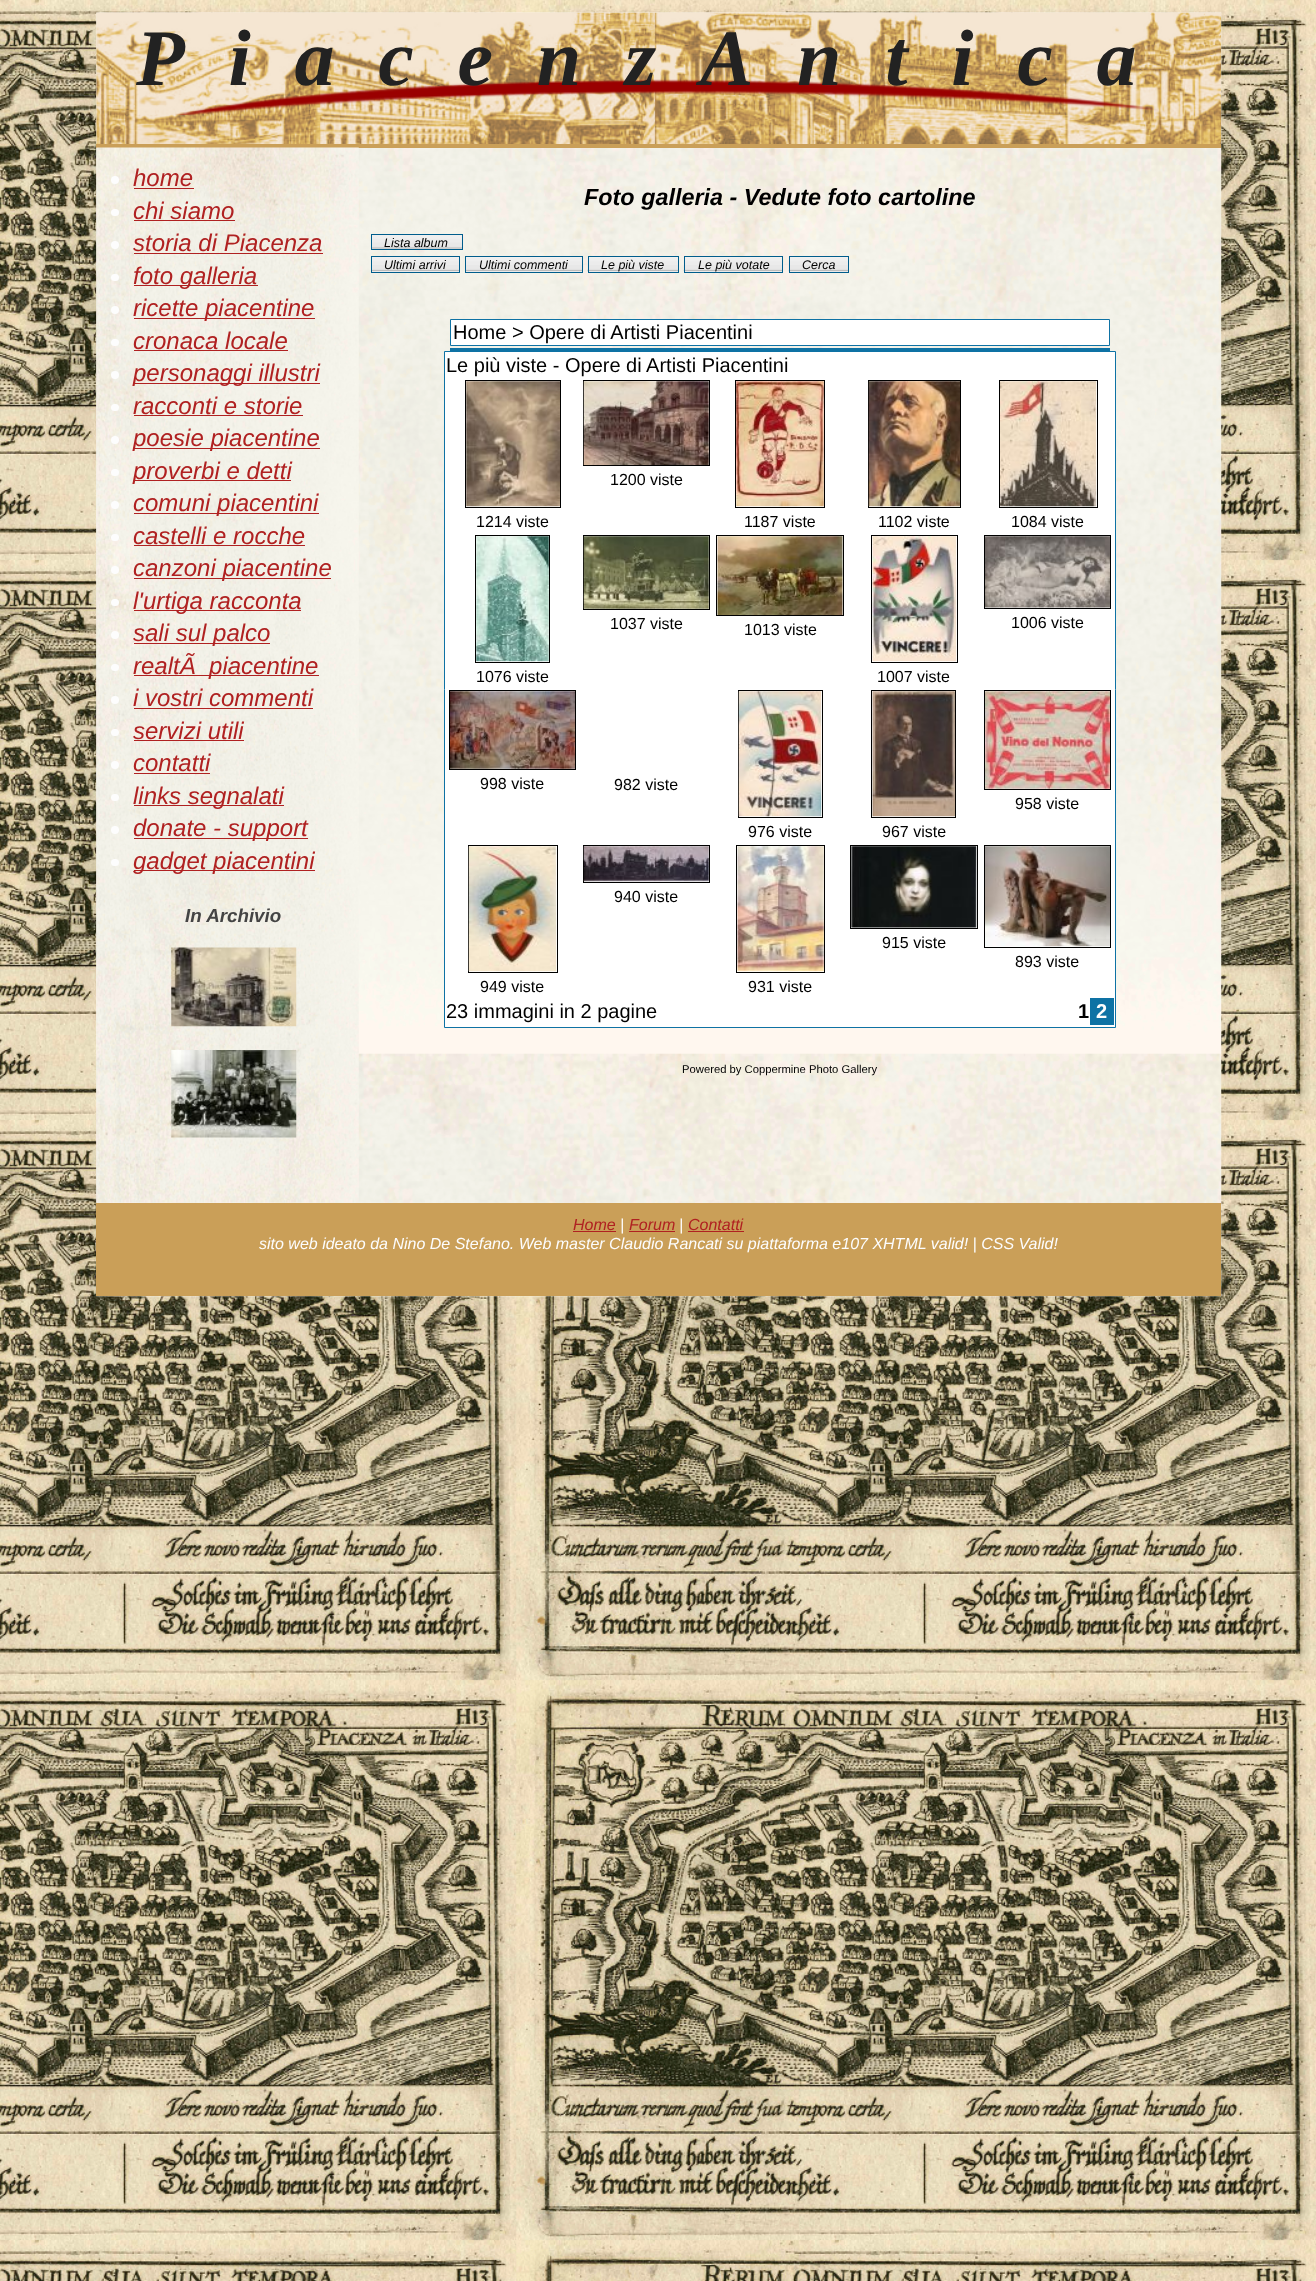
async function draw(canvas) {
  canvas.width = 1316;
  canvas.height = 2281;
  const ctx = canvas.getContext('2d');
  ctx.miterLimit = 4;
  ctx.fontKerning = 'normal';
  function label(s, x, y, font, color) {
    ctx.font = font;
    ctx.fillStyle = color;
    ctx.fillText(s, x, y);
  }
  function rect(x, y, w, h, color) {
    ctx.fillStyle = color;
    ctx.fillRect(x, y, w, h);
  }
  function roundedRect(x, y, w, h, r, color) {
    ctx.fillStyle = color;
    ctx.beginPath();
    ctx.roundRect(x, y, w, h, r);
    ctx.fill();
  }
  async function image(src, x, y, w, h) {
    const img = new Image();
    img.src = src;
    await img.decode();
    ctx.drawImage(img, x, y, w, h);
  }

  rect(0, 0, 1316, 2281, '#fff');
  await image('assets/img1.png', 0, 0, 1316, 2281);
  await image('assets/img2.png', 96, 12, 1126, 1285);
  await image('assets/img3.png', 96, 12, 1126, 136);
  rect(96, 144, 1125, 4, '#ca9f58');
  await image('assets/img4.png', 175, 79, 983, 36);
  ctx.letterSpacing = '43.75px';
  label('PiacenzAntica', 136, 85, 'italic bold 80px Liberation Serif', '#222');
  await image('assets/img5.png', 96, 147, 263, 1056);
  ctx.fillStyle = '#fdfdfd';
  ctx.beginPath();
  ctx.arc(115, 180, 4, 0, 2 * Math.PI);
  ctx.fill();
  ctx.letterSpacing = '0px';
  label('home', 133, 186, 'italic 24px Liberation Sans', '#b02121');
  rect(134, 188, 60, 1, '#b02121');
  roundedRect(111, 209, 8, 7, 3.5, '#fdfdfd');
  label('chi siamo', 133, 219, 'italic 24px Liberation Sans', '#b02121');
  rect(134, 220, 101, 1, '#b02121');
  ctx.fillStyle = '#fdfdfd';
  ctx.beginPath();
  ctx.arc(115, 245, 4, 0, 2 * Math.PI);
  ctx.fill();
  label('storia di Piacenza', 133, 251, 'italic 24px Liberation Sans', '#b02121');
  rect(134, 253, 189, 1, '#b02121');
  roundedRect(111, 274, 8, 7, 3.5, '#fdfdfd');
  rect(134, 285, 124, 1, '#b02121');
  label('foto galleria', 133, 284, 'italic 24px Liberation Sans', '#b02121');
  ctx.fillStyle = '#fdfdfd';
  ctx.beginPath();
  ctx.arc(115, 310, 4, 0, 2 * Math.PI);
  ctx.fill();
  rect(134, 318, 181, 1, '#b02121');
  label('ricette piacentine', 133, 316, 'italic 24px Liberation Sans', '#b02121');
  roundedRect(111, 339, 8, 7, 3.5, '#fdfdfd');
  label('cronaca locale', 133, 349, 'italic 24px Liberation Sans', '#b02121');
  rect(134, 350, 154, 1, '#b02121');
  ctx.fillStyle = '#fdfdfd';
  ctx.beginPath();
  ctx.arc(115, 375, 4, 0, 2 * Math.PI);
  ctx.fill();
  rect(134, 383, 186, 1, '#b02121');
  label('personaggi illustri', 133, 381, 'italic 24px Liberation Sans', '#b02121');
  roundedRect(111, 404, 8, 7, 3.5, '#fdfdfd');
  label('racconti e storie', 133, 414, 'italic 24px Liberation Sans', '#b02121');
  rect(134, 415, 169, 1, '#b02121');
  ctx.fillStyle = '#fdfdfd';
  ctx.beginPath();
  ctx.arc(115, 440, 4, 0, 2 * Math.PI);
  ctx.fill();
  rect(134, 448, 186, 1, '#b02121');
  label('poesie piacentine', 133, 446, 'italic 24px Liberation Sans', '#b02121');
  roundedRect(111, 469, 8, 7, 3.5, '#fdfdfd');
  rect(134, 480, 157, 1, '#b02121');
  label('proverbi e detti', 133, 479, 'italic 24px Liberation Sans', '#b02121');
  ctx.fillStyle = '#fdfdfd';
  ctx.beginPath();
  ctx.arc(115, 505, 4, 0, 2 * Math.PI);
  ctx.fill();
  rect(134, 513, 185, 1, '#b02121');
  label('comuni piacentini', 133, 511, 'italic 24px Liberation Sans', '#b02121');
  roundedRect(111, 534, 8, 7, 3.5, '#fdfdfd');
  label('castelli e rocche', 133, 544, 'italic 24px Liberation Sans', '#b02121');
  rect(134, 545, 171, 1, '#b02121');
  ctx.fillStyle = '#fdfdfd';
  ctx.beginPath();
  ctx.arc(115, 570, 4, 0, 2 * Math.PI);
  ctx.fill();
  rect(134, 578, 197, 1, '#b02121');
  label('canzoni piacentine', 133, 576, 'italic 24px Liberation Sans', '#b02121');
  roundedRect(111, 599, 8, 7, 3.5, '#fdfdfd');
  rect(134, 610, 167, 1, '#b02121');
  label('l\'urtiga racconta', 133, 609, 'italic 24px Liberation Sans', '#b02121');
  ctx.fillStyle = '#fdfdfd';
  ctx.beginPath();
  ctx.arc(115, 635, 4, 0, 2 * Math.PI);
  ctx.fill();
  rect(134, 643, 136, 1, '#b02121');
  label('sali sul palco', 133, 641, 'italic 24px Liberation Sans', '#b02121');
  roundedRect(111, 664, 8, 7, 3.5, '#fdfdfd');
  rect(134, 675, 185, 1, '#b02121');
  label('realtÃ  piacentine', 133, 674, 'italic 24px Liberation Sans', '#b02121');
  ctx.fillStyle = '#fdfdfd';
  ctx.beginPath();
  ctx.arc(115, 700, 4, 0, 2 * Math.PI);
  ctx.fill();
  label('i vostri commenti', 133, 706, 'italic 24px Liberation Sans', '#b02121');
  rect(134, 708, 179, 1, '#b02121');
  roundedRect(111, 729, 8, 7, 3.5, '#fdfdfd');
  label('servizi utili', 133, 739, 'italic 24px Liberation Sans', '#b02121');
  rect(134, 740, 110, 1, '#b02121');
  ctx.fillStyle = '#fdfdfd';
  ctx.beginPath();
  ctx.arc(115, 765, 4, 0, 2 * Math.PI);
  ctx.fill();
  label('contatti', 133, 771, 'italic 24px Liberation Sans', '#b02121');
  rect(134, 773, 76, 1, '#b02121');
  roundedRect(111, 794, 8, 7, 3.5, '#fdfdfd');
  rect(134, 805, 150, 1, '#b02121');
  label('links segnalati', 133, 804, 'italic 24px Liberation Sans', '#b02121');
  ctx.fillStyle = '#fdfdfd';
  ctx.beginPath();
  ctx.arc(115, 830, 4, 0, 2 * Math.PI);
  ctx.fill();
  rect(134, 838, 174, 1, '#b02121');
  label('donate - support', 133, 836, 'italic 24px Liberation Sans', '#b02121');
  roundedRect(111, 859, 8, 7, 3.5, '#fdfdfd');
  rect(134, 870, 181, 1, '#b02121');
  label('gadget piacentini', 133, 869, 'italic 24px Liberation Sans', '#b02121');
  label('In Archivio', 185, 922, 'italic bold 18.75px Liberation Sans', '#444');
  await image('assets/img6.png', 171, 947, 126, 80);
  await image('assets/img7.png', 171, 1050, 126, 88);
  label('Foto galleria - Vedute foto cartoline', 584, 205, 'italic bold 23.4px Liberation Sans', '#000');
  await image('assets/img8.png', 372, 235, 90, 14);
  ctx.strokeStyle = '#005d8c';
  ctx.strokeRect(371.5, 234.5, 91, 15);
  label('Lista album', 384, 247, 'italic 12.5px Liberation Sans', '#000');
  await image('assets/img9.png', 372, 257, 87, 15);
  await image('assets/img10.png', 466, 257, 116, 15);
  await image('assets/img11.png', 587, 256, 91, 17);
  await image('assets/img12.png', 683, 256, 99, 17);
  await image('assets/img13.png', 788, 256, 60, 17);
  ctx.strokeRect(371.5, 256.5, 88, 16);
  label('Ultimi arrivi', 384, 269, 'italic 12.5px Liberation Sans', '#000');
  ctx.strokeRect(465.5, 256.5, 117, 16);
  label('Ultimi commenti', 479, 269, 'italic 12.5px Liberation Sans', '#000');
  ctx.strokeRect(588.5, 256.5, 90, 16);
  label('Le più viste', 601, 269, 'italic 12.5px Liberation Sans', '#000');
  ctx.strokeRect(684.5, 256.5, 98, 16);
  label('Le più votate', 698, 269, 'italic 12.5px Liberation Sans', '#000');
  ctx.strokeRect(789.5, 256.5, 59, 16);
  label('Cerca', 802, 269, 'italic 12.5px Liberation Sans', '#000');
  ctx.fillStyle = '#fff';
  ctx.beginPath();
  ctx.rect(450.5, 319.5, 659, 26);
  ctx.fill();
  ctx.strokeStyle = '#0e72a4';
  ctx.stroke();
  label('Home > Opere di Artisti Piacentini', 453, 339, '20px Liberation Sans', '#000');
  rect(450, 348, 660, 3, '#0e72a4');
  ctx.fillStyle = '#fff';
  ctx.beginPath();
  ctx.rect(444.5, 351.5, 671, 676);
  ctx.fill();
  ctx.stroke();
  label('Le più viste - Opere di Artisti Piacentini', 446, 372, '20px Liberation Sans', '#000');
  ctx.strokeStyle = '#000';
  ctx.strokeRect(583.5, 380.5, 126, 85);
  await image('assets/img14.png', 583, 381, 126, 84);
  label('1200 viste', 610, 485, '16px Liberation Sans', '#000');
  ctx.strokeRect(465.5, 380.5, 95, 127);
  await image('assets/img15.png', 466, 381, 94, 126);
  label('1214 viste', 476, 527, '16px Liberation Sans', '#000');
  ctx.strokeRect(735.5, 380.5, 89, 127);
  await image('assets/img16.png', 736, 381, 88, 126);
  label('1187 viste', 744, 527, '16px Liberation Sans', '#000');
  ctx.strokeRect(868.5, 380.5, 92, 127);
  await image('assets/img17.png', 868, 381, 92, 126);
  label('1102 viste', 878, 527, '16px Liberation Sans', '#000');
  ctx.strokeRect(999.5, 380.5, 98, 127);
  await image('assets/img18.png', 1000, 381, 97, 126);
  label('1084 viste', 1011, 527, '16px Liberation Sans', '#000');
  ctx.strokeRect(583.5, 535.5, 126, 74);
  await image('assets/img19.png', 583, 536, 126, 73);
  label('1037 viste', 610, 629, '16px Liberation Sans', '#000');
  ctx.strokeRect(716.5, 535.5, 127, 80);
  await image('assets/img20.png', 717, 536, 126, 79);
  label('1013 viste', 744, 635, '16px Liberation Sans', '#000');
  ctx.strokeRect(984.5, 535.5, 126, 73);
  await image('assets/img21.png', 985, 536, 125, 72);
  label('1006 viste', 1011, 628, '16px Liberation Sans', '#000');
  ctx.strokeRect(475.5, 535.5, 74, 127);
  await image('assets/img22.png', 476, 536, 73, 126);
  label('1076 viste', 476, 682, '16px Liberation Sans', '#000');
  ctx.strokeRect(871.5, 535.5, 86, 127);
  await image('assets/img23.png', 872, 536, 85, 126);
  label('1007 viste', 877, 682, '16px Liberation Sans', '#000');
  ctx.strokeRect(449.5, 690.5, 126, 79);
  await image('assets/img24.png', 450, 691, 125, 78);
  label('998 viste', 480, 789, '16px Liberation Sans', '#000');
  label('982 viste', 614, 790, '16px Liberation Sans', '#000');
  ctx.strokeRect(984.5, 690.5, 126, 99);
  await image('assets/img25.png', 985, 691, 125, 98);
  label('958 viste', 1015, 809, '16px Liberation Sans', '#000');
  ctx.strokeRect(738.5, 690.5, 84, 127);
  await image('assets/img26.png', 738, 691, 84, 126);
  label('976 viste', 748, 837, '16px Liberation Sans', '#000');
  ctx.strokeRect(871.5, 690.5, 84, 127);
  await image('assets/img27.png', 872, 691, 83, 126);
  label('967 viste', 882, 837, '16px Liberation Sans', '#000');
  ctx.strokeRect(583.5, 845.5, 126, 37);
  await image('assets/img28.png', 583, 846, 126, 36);
  label('940 viste', 614, 902, '16px Liberation Sans', '#000');
  ctx.strokeRect(850.5, 845.5, 127, 83);
  await image('assets/img29.png', 851, 846, 126, 82);
  label('915 viste', 882, 948, '16px Liberation Sans', '#000');
  ctx.strokeRect(984.5, 845.5, 126, 102);
  await image('assets/img30.png', 985, 846, 125, 101);
  label('893 viste', 1015, 967, '16px Liberation Sans', '#000');
  ctx.strokeRect(468.5, 845.5, 89, 127);
  await image('assets/img31.png', 468, 846, 89, 126);
  label('949 viste', 480, 992, '16px Liberation Sans', '#000');
  ctx.strokeRect(736.5, 845.5, 88, 127);
  await image('assets/img32.png', 737, 846, 87, 126);
  label('931 viste', 748, 992, '16px Liberation Sans', '#000');
  label('23 immagini in 2 pagine', 446, 1018, '20px Liberation Sans', '#000');
  label('1', 1078, 1018, 'bold 20px Liberation Sans', '#000');
  rect(1090, 998, 24, 27, '#0e72a4');
  label('2', 1096, 1018, 'bold 20px Liberation Sans', '#fdfdfd');
  label('Powered by Coppermine Photo Gallery', 682, 1073, '11.25px Liberation Sans', '#000');
  rect(96, 1203, 1125, 93, '#ca9f58');
  label('Home', 573, 1230, 'italic 16px Liberation Sans', '#b02121');
  rect(573, 1231, 43, 1, '#b02121');
  label('|', 620, 1230, 'italic 16px Liberation Sans', '#fdfdfd');
  label('Forum', 629, 1230, 'italic 16px Liberation Sans', '#b02121');
  rect(629, 1231, 46, 1, '#b02121');
  label('|', 679, 1230, 'italic 16px Liberation Sans', '#fdfdfd');
  label('Contatti', 688, 1230, 'italic 16px Liberation Sans', '#b02121');
  rect(688, 1231, 56, 1, '#b02121');
  label('sito web ideato da Nino De Stefano. Web master Claudio Rancati su piattaforma e107 XHTML valid! | CSS Valid!', 259, 1249, 'italic 16px Liberation Sans', '#fdfdfd');
}

draw(document.querySelector('canvas'));
